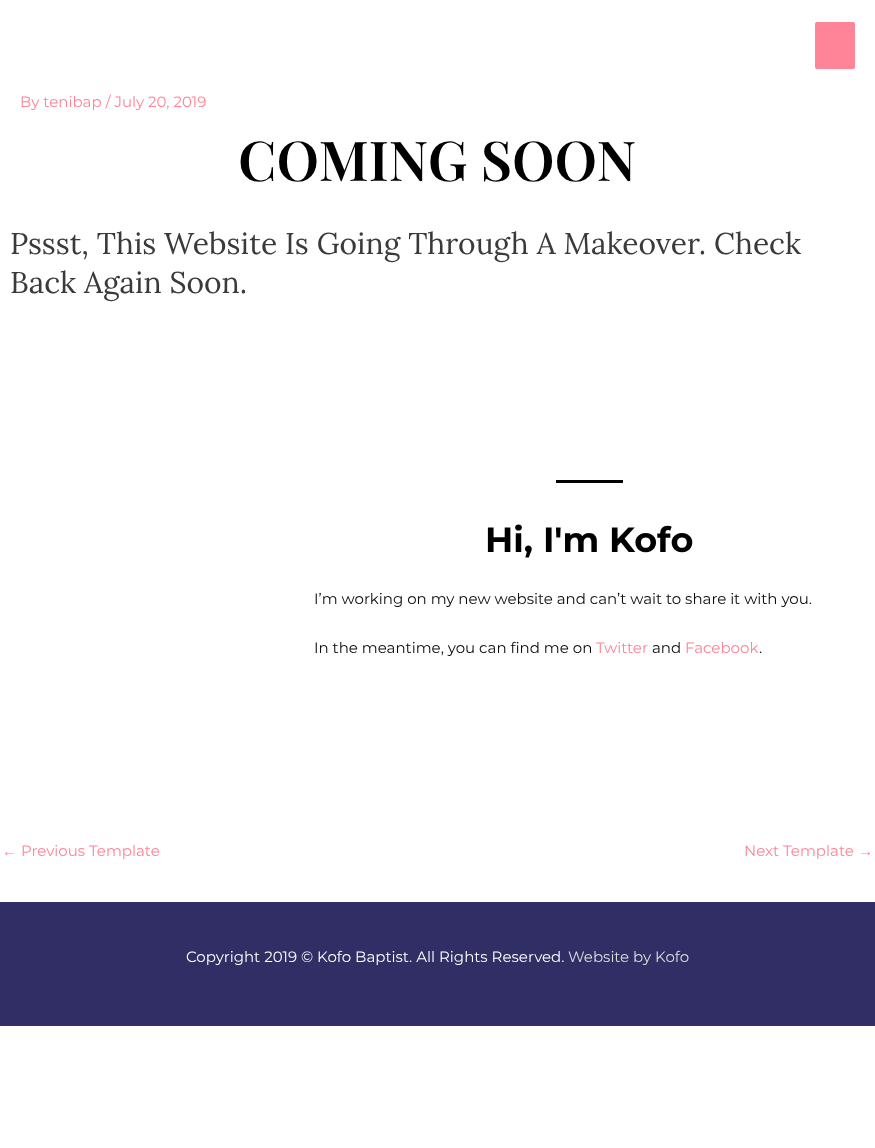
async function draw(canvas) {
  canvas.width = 875;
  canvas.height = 1148;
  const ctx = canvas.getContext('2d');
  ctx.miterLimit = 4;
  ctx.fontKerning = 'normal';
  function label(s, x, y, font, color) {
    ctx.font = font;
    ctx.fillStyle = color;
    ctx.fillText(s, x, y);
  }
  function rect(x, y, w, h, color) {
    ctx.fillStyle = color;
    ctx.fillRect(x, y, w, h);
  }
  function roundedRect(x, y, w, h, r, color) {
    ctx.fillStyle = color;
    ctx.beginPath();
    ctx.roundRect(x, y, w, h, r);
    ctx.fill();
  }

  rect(0, 0, 875, 1148, '#fff');
  roundedRect(815, 22, 40, 47, 2, '#ff8497');
  label('By tenibap / July 20, 2019', 20, 107, '15px Montserrat', '#ff8497');
  label('COMING SOON', 238, 181, '600 55px Playfair Display', '#000');
  label('Pssst, This Website Is Going Through A Makeover. Check', 10, 254, '30px Lora', '#3a3a3a');
  label('Back Again Soon.', 10, 293, '30px Lora', '#3a3a3a');
  rect(556, 480, 67, 3, '#000');
  label('Hi, I\'m Kofo', 485, 552, 'bold 35px Montserrat', '#000');
  label('I’m working on my new website and can’t wait to share it with you.', 314, 604, '15px Montserrat', '#0c0c0c');
  label('In the meantime, you can find me on', 314, 653, '15px Montserrat', '#0c0c0c');
  label('Twitter', 596, 653, '15px Montserrat', '#ff8497');
  label('and', 652, 653, '15px Montserrat', '#0c0c0c');
  label('Facebook', 685, 653, '15px Montserrat', '#ff8497');
  label('.', 759, 653, '15px Montserrat', '#0c0c0c');
  label('←', 2, 856, '15px Liberation Sans', '#ff8497');
  label('Previous Template', 21, 856, '15px Montserrat', '#ff8497');
  label('Next Template', 744, 856, '15px Montserrat', '#ff8497');
  label('→', 858, 856, '15px Liberation Sans', '#ff8497');
  rect(0, 902, 875, 124, '#302e64');
  label('Copyright 2019 © Kofo Baptist. All Rights Reserved.', 186, 962, '15px Montserrat', '#fff');
  label('Website by Kofo', 568, 962, '15px Montserrat', '#ddd');
}

draw(document.querySelector('canvas'));
